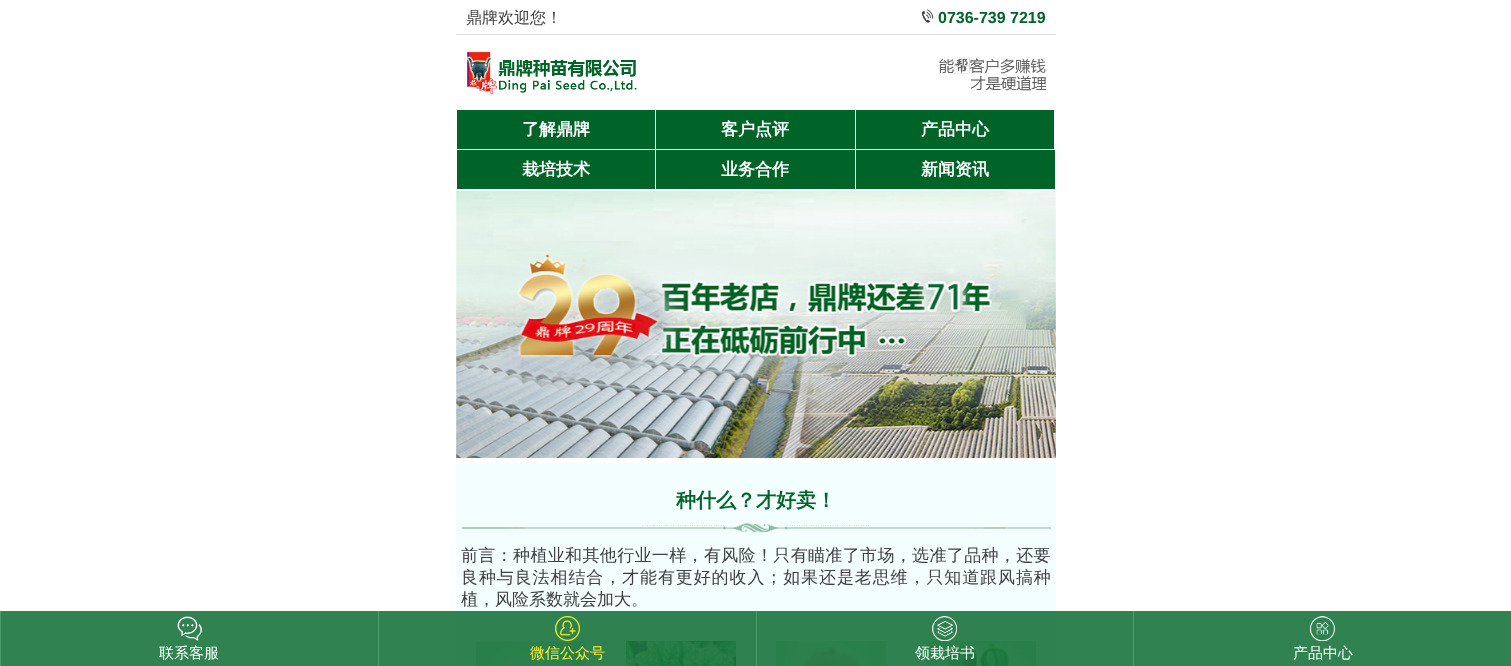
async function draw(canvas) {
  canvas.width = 1511;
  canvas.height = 666;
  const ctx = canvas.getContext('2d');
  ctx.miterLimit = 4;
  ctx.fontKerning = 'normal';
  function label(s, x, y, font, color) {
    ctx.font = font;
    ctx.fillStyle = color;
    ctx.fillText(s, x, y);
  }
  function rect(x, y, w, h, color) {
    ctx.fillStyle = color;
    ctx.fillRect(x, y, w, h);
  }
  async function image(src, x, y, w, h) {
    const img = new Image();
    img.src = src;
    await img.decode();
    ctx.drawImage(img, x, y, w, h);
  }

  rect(0, 0, 1511, 666, '#fff');
  rect(1134, 611, 377, 55, '#308250');
  rect(1056, 611, 77, 55, '#308250');
  rect(379, 611, 77, 55, '#308250');
  rect(456, 34, 600, 1, '#ddd');
  label('鼎牌欢迎您！', 466, 23, '500 16px WenQuanYi Zen Hei', '#404040');
  await image('assets/img1.png', 921, 9, 13, 14);
  label('0736-739 7219', 938, 23, 'bold 16px Liberation Sans', '#006428');
  await image('assets/img2.png', 467, 51, 170, 44);
  await image('assets/img3.png', 939, 57, 107, 34);
  rect(457, 110, 198, 39, '#006428');
  label('了解鼎牌', 522, 135, 'bold 17px WenQuanYi Zen Hei', '#fff');
  rect(656, 110, 199, 39, '#006428');
  label('客户点评', 721, 135, 'bold 17px WenQuanYi Zen Hei', '#fff');
  rect(856, 110, 198, 39, '#006428');
  label('产品中心', 921, 135, 'bold 17px WenQuanYi Zen Hei', '#fff');
  rect(457, 150, 198, 39, '#006428');
  label('栽培技术', 522, 175, 'bold 17px WenQuanYi Zen Hei', '#fff');
  rect(656, 150, 199, 39, '#006428');
  label('业务合作', 721, 175, 'bold 17px WenQuanYi Zen Hei', '#fff');
  rect(856, 150, 199, 39, '#006428');
  label('新闻资讯', 921, 175, 'bold 17px WenQuanYi Zen Hei', '#fff');
  await image('assets/img4.png', 456, 191, 600, 267);
  await image('assets/img5.png', 1055, 320, 1, 138);
  rect(456, 463, 600, 148, '#f3fffe');
  rect(757, 611, 299, 55, '#2f8250');
  rect(456, 611, 300, 55, '#2f8250');
  label('种什么？才好卖！', 676, 507, 'bold 20px WenQuanYi Zen Hei', '#006428');
  await image('assets/img6.png', 461, 523, 590, 10);
  ctx.letterSpacing = '0.35px';
  label('前言：种植业和其他行业一样，有风险！只有瞄准了市场，选准了品种，还要', 461, 561, '500 17px WenQuanYi Zen Hei', '#404040');
  ctx.letterSpacing = '0.9px';
  label('良种与良法相结合，才能有更好的收入；如果还是老思维，只知道跟风搞种', 461, 583, '500 17px WenQuanYi Zen Hei', '#404040');
  ctx.letterSpacing = '0px';
  label('植，风险系数就会加大。', 461, 605, '500 17px WenQuanYi Zen Hei', '#404040');
  await image('assets/img7.png', 476, 641, 110, 25);
  await image('assets/img8.png', 626, 641, 110, 25);
  await image('assets/img9.png', 776, 641, 110, 25);
  await image('assets/img10.png', 926, 641, 110, 25);
  rect(1, 611, 377, 55, '#308250');
  await image('assets/img11.png', 177, 616, 25, 25);
  rect(0, 611, 1, 55, '#499c6b');
  label('联系客服', 159, 658, '500 15px WenQuanYi Zen Hei', '#fff');
  await image('assets/img12.png', 555, 616, 25, 25);
  rect(378, 611, 1, 55, '#499c6b');
  label('微信公众号', 530, 658, '500 15px WenQuanYi Zen Hei', '#fff039');
  await image('assets/img13.png', 932, 616, 25, 25);
  rect(756, 611, 1, 55, '#499c6b');
  label('领栽培书', 915, 658, '500 15px WenQuanYi Zen Hei', '#fff');
  await image('assets/img14.png', 1310, 616, 25, 25);
  rect(1133, 611, 1, 55, '#499c6b');
  label('产品中心', 1293, 658, '500 15px WenQuanYi Zen Hei', '#fff');
}

draw(document.querySelector('canvas'));
